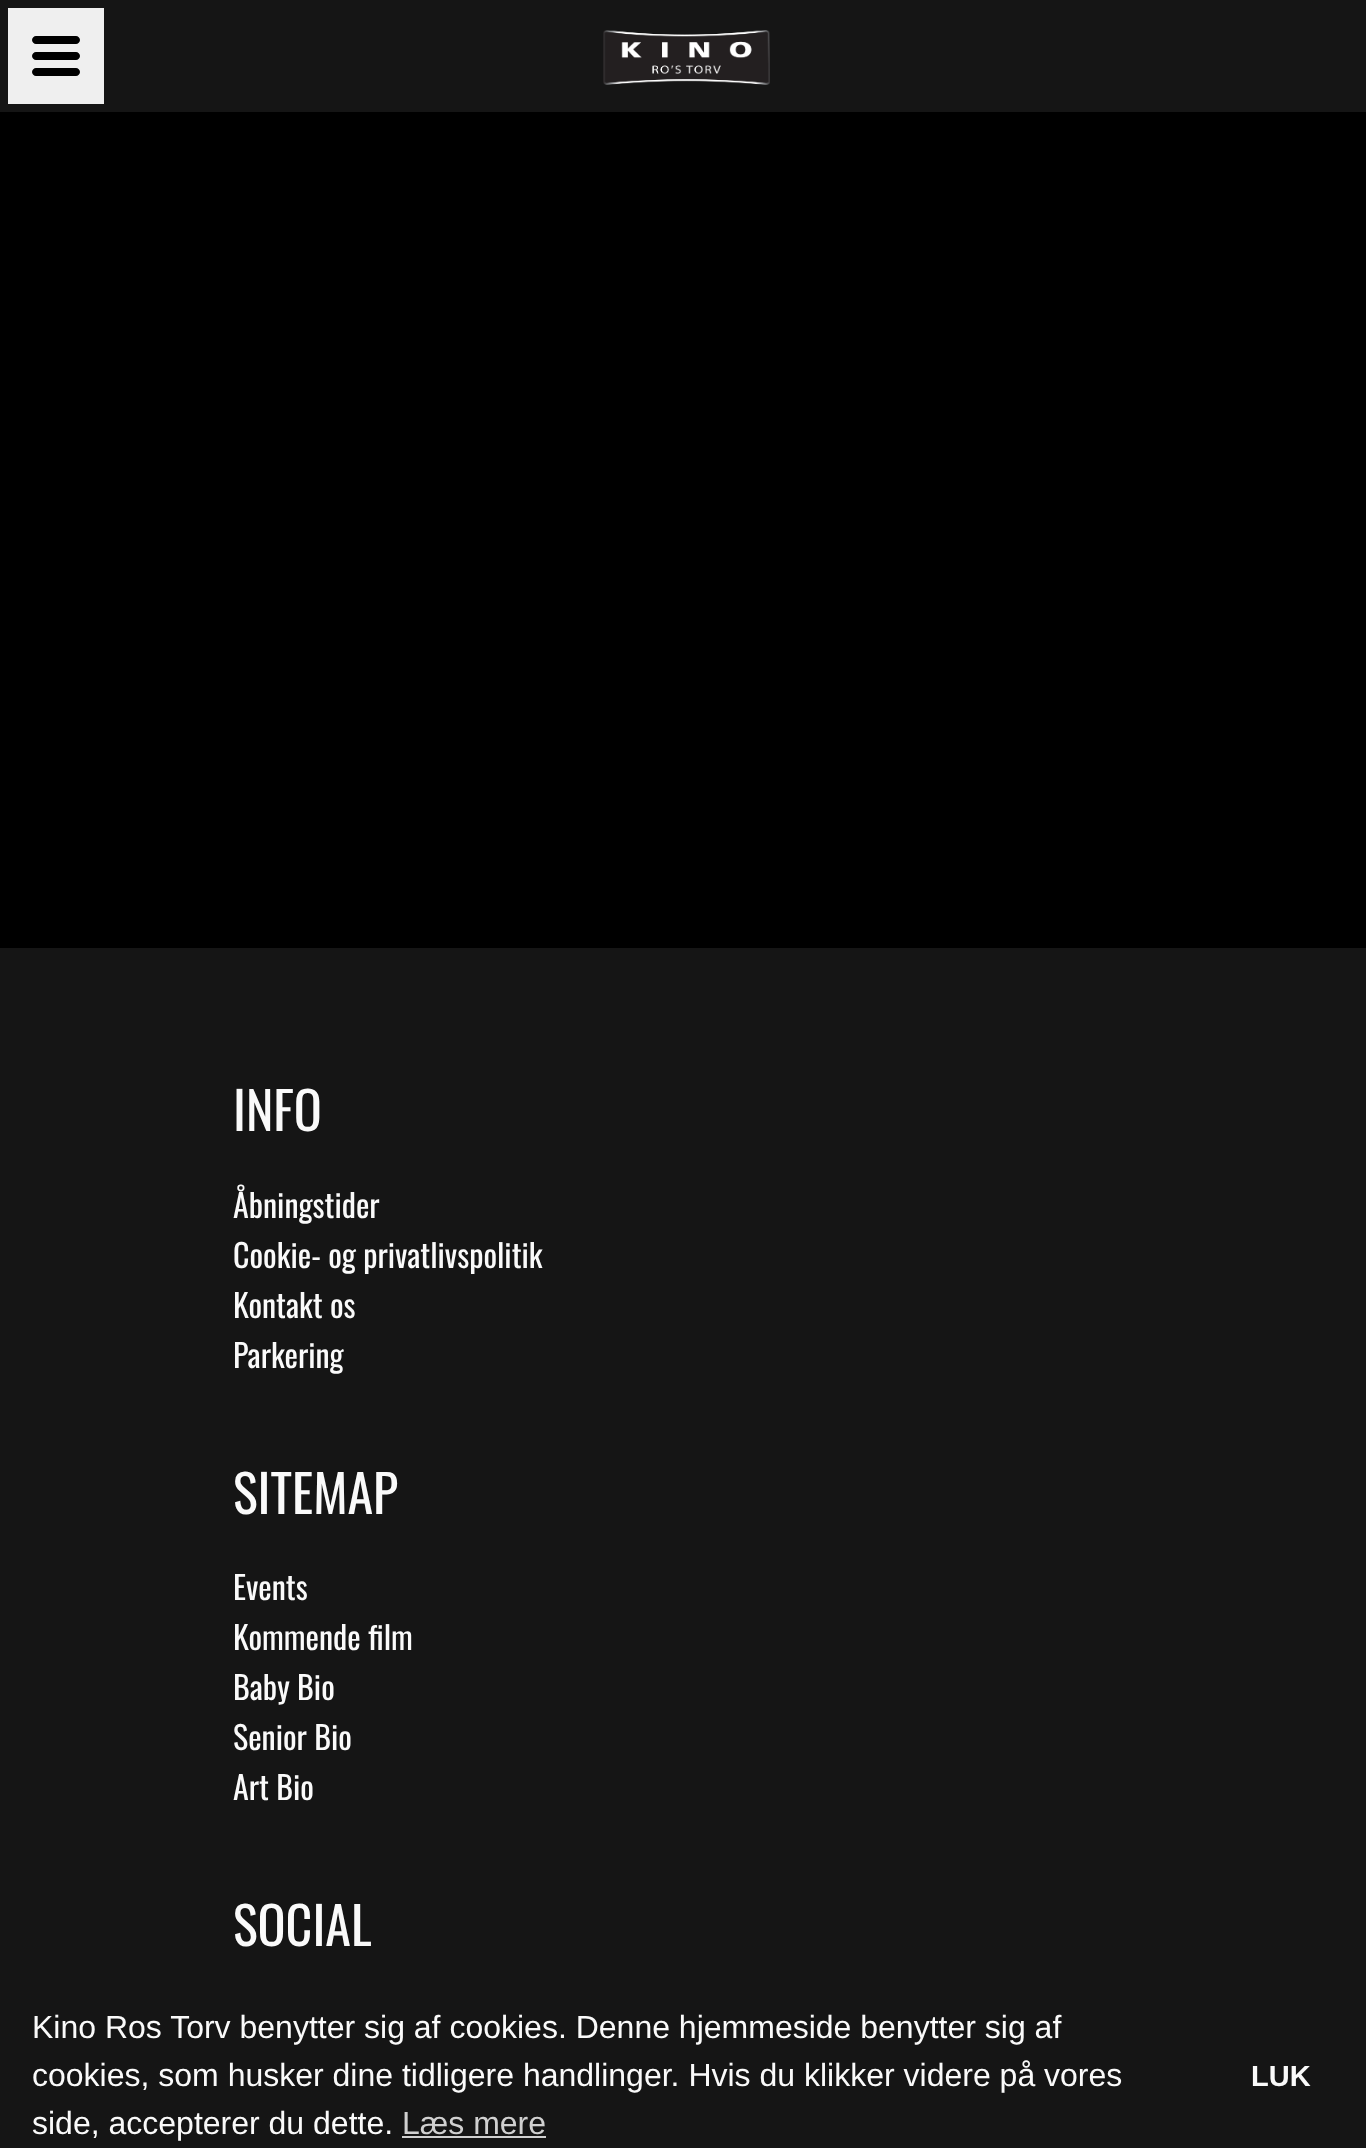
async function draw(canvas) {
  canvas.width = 1366;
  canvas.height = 2148;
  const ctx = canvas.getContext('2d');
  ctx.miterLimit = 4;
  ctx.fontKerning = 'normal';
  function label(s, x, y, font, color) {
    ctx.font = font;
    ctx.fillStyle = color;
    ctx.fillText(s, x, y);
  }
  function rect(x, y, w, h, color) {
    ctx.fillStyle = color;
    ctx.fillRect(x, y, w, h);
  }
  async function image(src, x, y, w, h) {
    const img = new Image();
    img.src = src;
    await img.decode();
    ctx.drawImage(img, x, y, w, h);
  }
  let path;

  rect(0, 0, 1366, 2148, '#000');
  rect(0, 0, 1366, 112, '#151515');
  rect(8, 8, 96, 96, '#efefef');
  ctx.fillStyle = '#000';
  path = new Path2D('M76 60H36C34 60 32 58 32 56C32 54 34 52 36 52H76C78 52 80 54 80 56C80 58 78 60 76 60ZM76 76H36C34 76 32 74 32 72C32 70 34 68 36 68H76C78 68 80 70 80 72C80 74 78 76 76 76ZM76 44H36C34 44 32 42 32 40C32 38 34 36 36 36H76C78 36 80 38 80 40C80 42 78 44 76 44Z');
  ctx.fill(path);
  await image('assets/img1.png', 603, 30, 167, 55);
  rect(0, 948, 1366, 1200, '#151515');
  label('INFO', 233, 1131, '52px Oswald', '#fafafa');
  label('Åbningstider', 233, 1218, '32px Oswald', '#fafafa');
  label('Cookie- og privatlivspolitik', 233, 1268, '32px Oswald', '#fafafa');
  label('Kontakt os', 233, 1318, '32px Oswald', '#fafafa');
  label('Parkering', 233, 1368, '32px Oswald', '#fafafa');
  label('SITEMAP', 233, 1514, '52px Oswald', '#fafafa');
  label('Events', 233, 1600, '32px Oswald', '#fafafa');
  label('Kommende film', 233, 1650, '32px Oswald', '#fafafa');
  label('Baby Bio', 233, 1700, '32px Oswald', '#fafafa');
  label('Senior Bio', 233, 1750, '32px Oswald', '#fafafa');
  label('Art Bio', 233, 1800, '32px Oswald', '#fafafa');
  label('SOCIAL', 233, 1946, '52px Oswald', '#fafafa');
  label('Kino Ros Torv benytter sig af cookies. Denne hjemmeside benytter sig af', 32, 2038, '32px Liberation Sans', '#fafafa');
  label('cookies, som husker dine tidligere handlinger. Hvis du klikker videre på vores', 32, 2086, '32px Liberation Sans', '#fafafa');
  label('side, accepterer du dette.', 32, 2134, '32px Liberation Sans', '#fafafa');
  label('Læs mere', 402, 2134, '32px Liberation Sans', '#d0d0d0');
  rect(402, 2136, 144, 2, '#d0d0d0');
  label('LUK', 1251, 2086, 'bold 29px Liberation Sans', '#fafafa');
}

draw(document.querySelector('canvas'));
